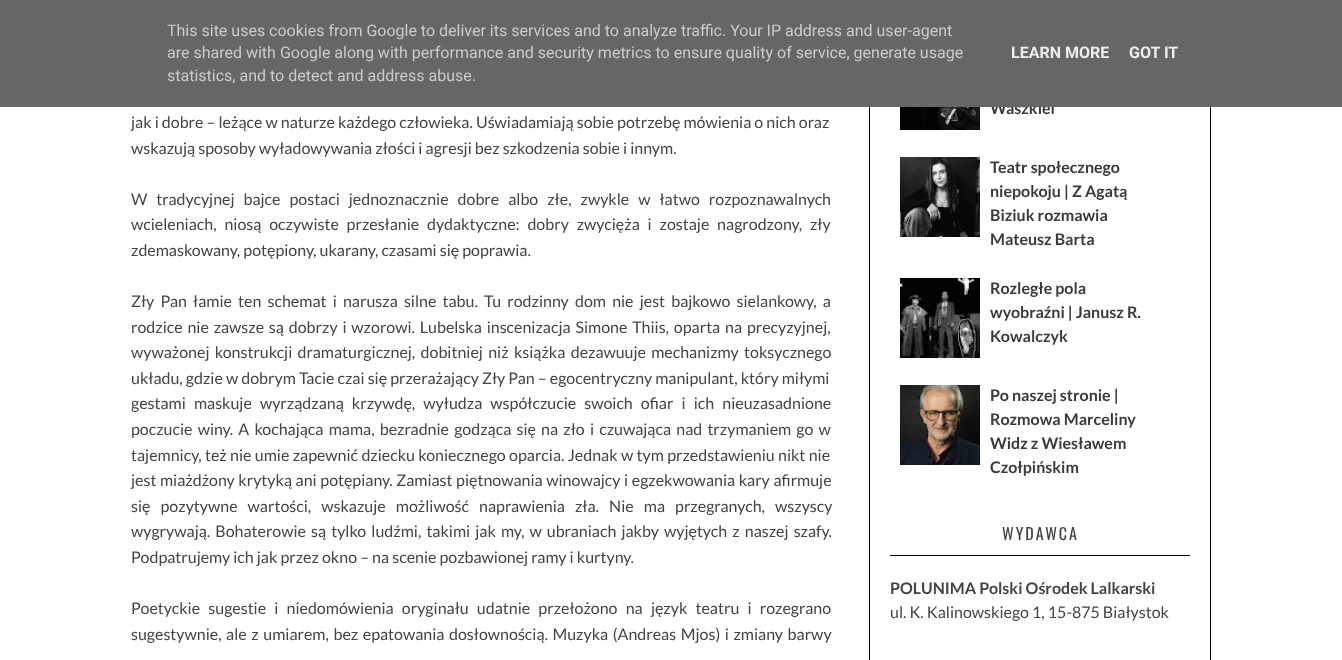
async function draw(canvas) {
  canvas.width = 1342;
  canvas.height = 660;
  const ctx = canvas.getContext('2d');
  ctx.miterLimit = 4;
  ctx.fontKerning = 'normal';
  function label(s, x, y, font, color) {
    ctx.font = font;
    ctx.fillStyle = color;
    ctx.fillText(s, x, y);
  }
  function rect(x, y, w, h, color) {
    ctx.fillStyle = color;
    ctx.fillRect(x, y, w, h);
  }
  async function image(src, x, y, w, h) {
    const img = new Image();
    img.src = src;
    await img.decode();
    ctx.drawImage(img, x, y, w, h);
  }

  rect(0, 0, 1342, 660, '#fff');
  ctx.strokeStyle = '#000';
  ctx.strokeRect(869.5, -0.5, 341, 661);
  label('Waszkiel', 990, 114, 'bold 16px Lato', '#3a3a3a');
  rect(0, 0, 1342, 107, '#666');
  label('This site uses cookies from Google to deliver its services and to analyze traffic. Your IP address and user-agent', 167, 36, '16px Roboto', '#ccc');
  label('are shared with Google along with performance and security metrics to ensure quality of service, generate usage', 167, 58, '16px Roboto', '#ccc');
  label('statistics, and to detect and address abuse.', 167, 81, '16px Roboto', '#ccc');
  label('LEARN MORE', 1011, 58, 'bold 16px Roboto', '#eee');
  label('GOT IT', 1129, 58, 'bold 16px Roboto', '#eee');
  label('jak i dobre – leżące w naturze każdego człowieka. Uświadamiają sobie potrzebę mówienia o nich oraz', 131, 128, '16px Lato', '#444');
  label('wskazują sposoby wyładowywania złości i agresji bez szkodzenia sobie i innym.', 131, 154, '16px Lato', '#444');
  ctx.wordSpacing = '5.9px';
  label('W tradycyjnej bajce postaci jednoznacznie dobre albo złe, zwykle w łatwo rozpoznawalnych', 131, 205, '16px Lato', '#444');
  ctx.wordSpacing = '4.75px';
  label('wcieleniach, niosą oczywiste przesłanie dydaktyczne: dobry zwycięża i zostaje nagrodzony, zły', 131, 230, '16px Lato', '#444');
  ctx.wordSpacing = '0px';
  label('zdemaskowany, potępiony, ukarany, czasami się poprawia.', 131, 256, '16px Lato', '#444');
  ctx.wordSpacing = '3.1px';
  label('Zły Pan łamie ten schemat i narusza silne tabu. Tu rodzinny dom nie jest bajkowo sielankowy, a', 131, 307, '16px Lato', '#444');
  ctx.wordSpacing = '1.75px';
  label('rodzice nie zawsze są dobrzy i wzorowi. Lubelska inscenizacja Simone Thiis, oparta na precyzyjnej,', 131, 333, '16px Lato', '#444');
  ctx.wordSpacing = '2.25px';
  label('wyważonej konstrukcji dramaturgicznej, dobitniej niż książka dezawuuje mechanizmy toksycznego', 131, 358, '16px Lato', '#444');
  ctx.wordSpacing = '0px';
  label('układu, gdzie w dobrym Tacie czai się przerażający Zły Pan – egocentryczny manipulant, który miłymi', 131, 384, '16px Lato', '#444');
  ctx.wordSpacing = '5px';
  label('gestami maskuje wyrządzaną krzywdę, wyłudza współczucie swoich ofiar i ich nieuzasadnione', 131, 409, '16px Lato', '#444');
  ctx.wordSpacing = '2.1px';
  label('poczucie winy. A kochająca mama, bezradnie godząca się na zło i czuwająca nad trzymaniem go w', 131, 435, '16px Lato', '#444');
  ctx.wordSpacing = '0.25px';
  label('tajemnicy, też nie umie zapewnić dziecku koniecznego oparcia. Jednak w tym przedstawieniu nikt nie', 131, 461, '16px Lato', '#444');
  ctx.wordSpacing = '0.5px';
  label('jest miażdżony krytyką ani potępiany. Zamiast piętnowania winowajcy i egzekwowania kary afirmuje', 131, 486, '16px Lato', '#444');
  ctx.wordSpacing = '7px';
  label('się pozytywne wartości, wskazuje możliwość naprawienia zła. Nie ma przegranych, wszyscy', 131, 512, '16px Lato', '#444');
  ctx.wordSpacing = '2px';
  label('wygrywają. Bohaterowie są tylko ludźmi, takimi jak my, w ubraniach jakby wyjętych z naszej szafy.', 131, 537, '16px Lato', '#444');
  ctx.wordSpacing = '0px';
  label('Podpatrujemy ich jak przez okno – na scenie pozbawionej ramy i kurtyny.', 131, 563, '16px Lato', '#444');
  ctx.wordSpacing = '5.1px';
  label('Poetyckie sugestie i niedomówienia oryginału udatnie przełożono na język teatru i rozegrano', 131, 614, '16px Lato', '#444');
  ctx.wordSpacing = '1.5px';
  label('sugestywnie, ale z umiarem, bez epatowania dosłownością. Muzyka (Andreas Mjos) i zmiany barwy', 131, 640, '16px Lato', '#444');
  await image('assets/img1.png', 900, 107, 80, 23);
  await image('assets/img2.png', 900, 157, 80, 80);
  ctx.wordSpacing = '0px';
  label('Teatr społecznego', 990, 173, 'bold 16px Lato', '#3a3a3a');
  label('niepokoju | Z Agatą', 990, 197, 'bold 16px Lato', '#3a3a3a');
  label('Biziuk rozmawia', 990, 221, 'bold 16px Lato', '#3a3a3a');
  label('Mateusz Barta', 990, 245, 'bold 16px Lato', '#3a3a3a');
  await image('assets/img3.png', 900, 278, 80, 80);
  label('Rozległe pola', 990, 294, 'bold 16px Lato', '#3a3a3a');
  label('wyobraźni | Janusz R.', 990, 318, 'bold 16px Lato', '#3a3a3a');
  label('Kowalczyk', 990, 342, 'bold 16px Lato', '#3a3a3a');
  await image('assets/img4.png', 900, 385, 80, 80);
  label('Po naszej stronie |', 990, 401, 'bold 16px Lato', '#3a3a3a');
  label('Rozmowa Marceliny', 990, 425, 'bold 16px Lato', '#3a3a3a');
  label('Widz z Wiesławem', 990, 449, 'bold 16px Lato', '#3a3a3a');
  label('Czołpińskim', 990, 473, 'bold 16px Lato', '#3a3a3a');
  rect(890, 555, 300, 1, '#000');
  ctx.letterSpacing = '2px';
  label('WYDAWCA', 1002, 540, '16px Oswald', '#444');
  ctx.letterSpacing = '0px';
  label('POLUNIMA Polski Ośrodek Lalkarski', 890, 594, 'bold 16px Lato', '#444');
  label('ul. K. Kalinowskiego 1, 15-875 Białystok', 890, 618, '16px Lato', '#444');
}

draw(document.querySelector('canvas'));
